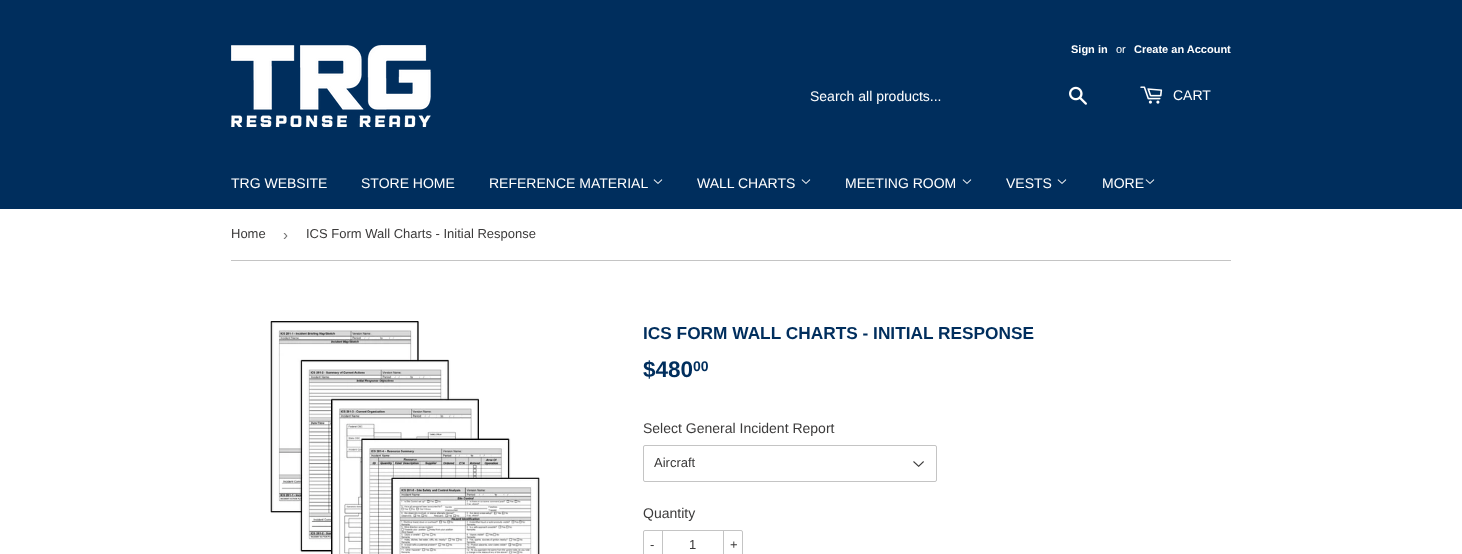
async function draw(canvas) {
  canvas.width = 1462;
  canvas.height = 554;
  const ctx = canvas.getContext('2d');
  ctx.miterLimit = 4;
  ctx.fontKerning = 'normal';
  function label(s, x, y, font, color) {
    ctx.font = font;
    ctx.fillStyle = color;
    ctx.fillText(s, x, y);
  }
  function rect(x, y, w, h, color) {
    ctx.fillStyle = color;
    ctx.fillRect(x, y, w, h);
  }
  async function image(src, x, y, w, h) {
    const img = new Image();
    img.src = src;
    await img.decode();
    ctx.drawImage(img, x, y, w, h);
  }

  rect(0, 0, 1462, 554, '#fff');
  rect(0, 0, 1462, 209, '#002e5d');
  await image('assets/img1.png', 231, 45, 200, 82);
  label('Sign in', 1071, 53, 'bold 11px Liberation Sans', '#fff');
  label('or', 1116, 53, '11px Liberation Sans', '#fff');
  label('Create an Account', 1134, 53, 'bold 11px Liberation Sans', '#fff');
  label('Search all products...', 810, 101, '14px Liberation Sans', '#fff');
  await image('assets/img2.png', 1069, 86, 18, 19);
  await image('assets/img3.png', 1140, 86, 23, 18);
  label('CART', 1173, 100, '14px Liberation Sans', '#fff');
  label('TRG WEBSITE', 231, 188, '14px Liberation Sans', '#fff');
  label('STORE HOME', 361, 188, '14px Liberation Sans', '#fff');
  label('REFERENCE MATERIAL', 489, 188, '14px Liberation Sans', '#fff');
  await image('assets/img4.png', 653, 179, 10, 5);
  label('WALL CHARTS', 697, 188, '14px Liberation Sans', '#fff');
  await image('assets/img4.png', 801, 179, 10, 5);
  label('MEETING ROOM', 845, 188, '14px Liberation Sans', '#fff');
  await image('assets/img4.png', 962, 179, 10, 5);
  label('VESTS', 1006, 188, '14px Liberation Sans', '#fff');
  await image('assets/img4.png', 1057, 179, 10, 5);
  label('MORE', 1102, 188, '14px Liberation Sans', '#fff');
  await image('assets/img4.png', 1145, 179, 10, 5);
  rect(231, 260, 1000, 1, '#c4c4c4');
  label('Home', 231, 238, '13px Liberation Sans', '#3b3a3a');
  label('›', 283, 240, '15px Liberation Sans', '#767676');
  label('ICS Form Wall Charts - Initial Response', 306, 238, '13px Liberation Sans', '#3b3a3a');
  await image('assets/img5.png', 270, 321, 270, 233);
  label('ICS FORM WALL CHARTS - INITIAL RESPONSE', 643, 339, 'bold 17.3px Liberation Sans', '#002e5d');
  label('$480', 643, 377, 'bold 22.5px Liberation Sans', '#002e5d');
  label('00', 693, 371, 'bold 14px Liberation Sans', '#002e5d');
  label('Select General Incident Report', 643, 433, '14px Liberation Sans', '#3b3a3a');
  await image('assets/img6.png', 913, 461, 11, 6);
  ctx.beginPath();
  ctx.roundRect(643.5, 445.5, 293, 36, 1.5);
  ctx.strokeStyle = '#c4c4c4';
  ctx.stroke();
  label('Aircraft', 654, 467, '13px Liberation Sans', '#3b3a3a');
  label('Quantity', 643, 518, '14px Liberation Sans', '#3b3a3a');
  ctx.beginPath();
  ctx.roundRect(643.5, 530.5, 99, 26, 1.5);
  ctx.stroke();
  rect(662, 530, 1, 24, '#c4c4c4');
  label('-', 650, 549, '13px Liberation Sans', '#3b3a3a');
  label('1', 689, 549, '13px Liberation Sans', '#3b3a3a');
  rect(723, 530, 1, 24, '#c4c4c4');
  label('+', 730, 549, '13px Liberation Sans', '#3b3a3a');
}

draw(document.querySelector('canvas'));
